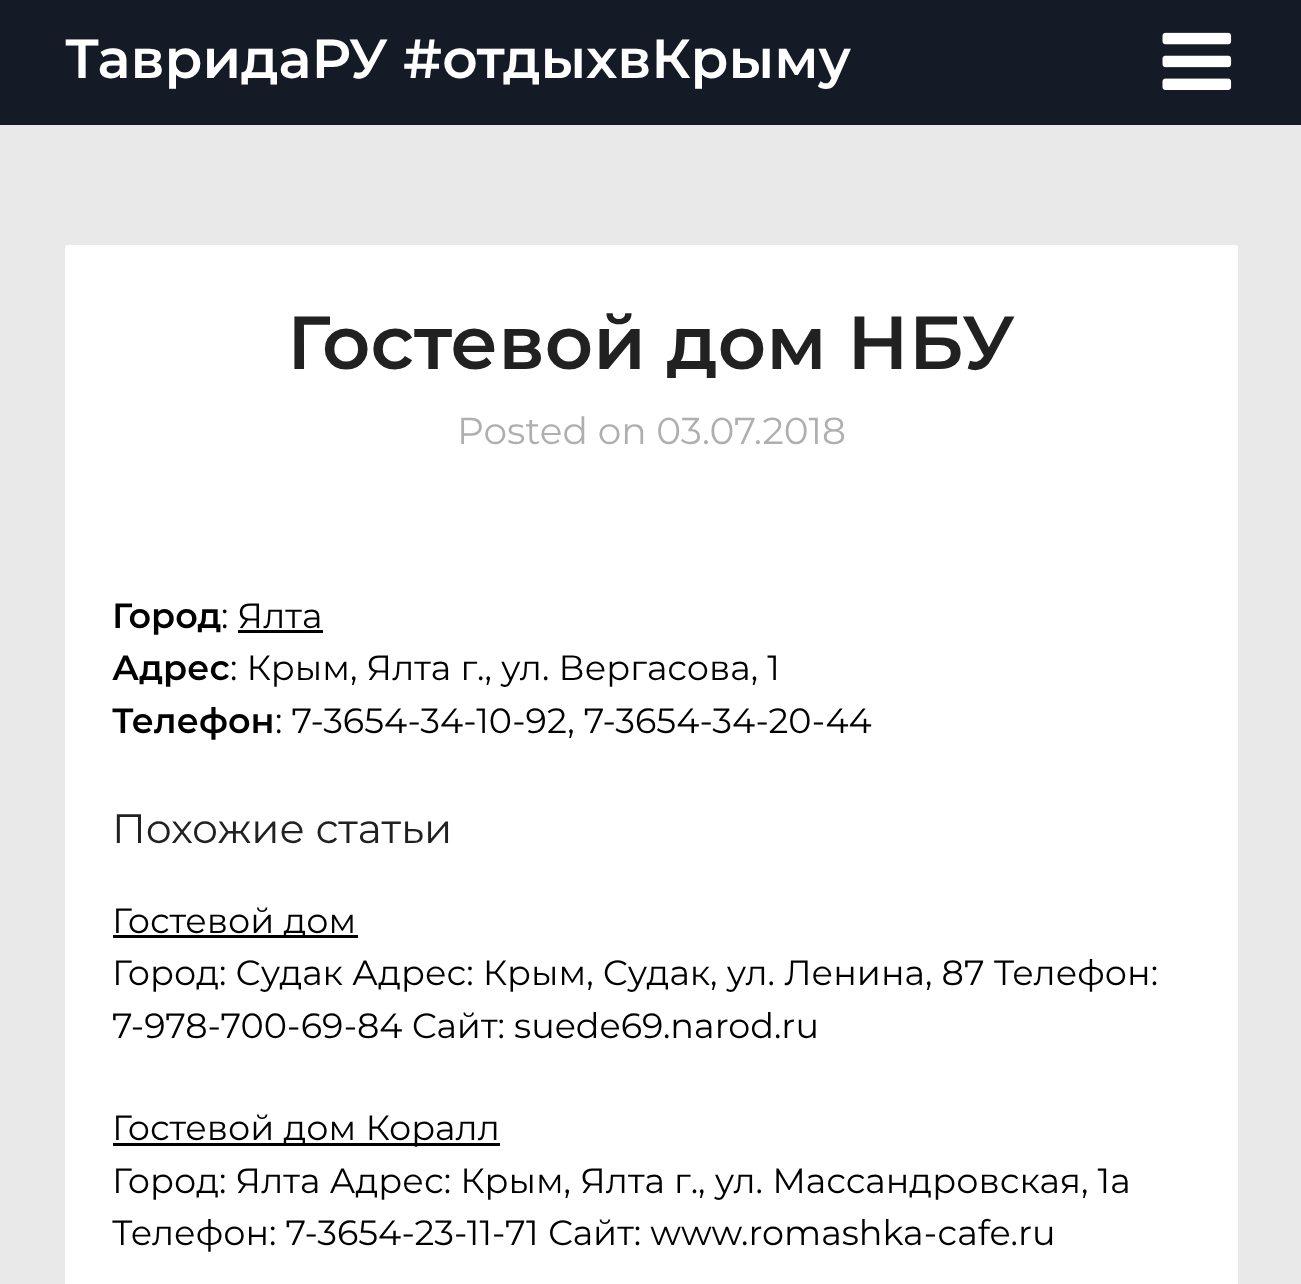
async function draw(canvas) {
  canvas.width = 1301;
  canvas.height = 1284;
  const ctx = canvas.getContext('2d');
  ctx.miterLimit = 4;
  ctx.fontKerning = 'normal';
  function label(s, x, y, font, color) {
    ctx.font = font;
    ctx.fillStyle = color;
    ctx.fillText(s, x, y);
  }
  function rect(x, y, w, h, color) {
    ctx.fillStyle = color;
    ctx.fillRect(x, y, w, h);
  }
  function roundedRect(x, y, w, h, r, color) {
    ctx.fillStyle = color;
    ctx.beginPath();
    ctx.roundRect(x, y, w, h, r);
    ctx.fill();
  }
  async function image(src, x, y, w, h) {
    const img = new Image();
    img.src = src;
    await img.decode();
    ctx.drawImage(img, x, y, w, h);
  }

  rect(0, 0, 1301, 1284, '#e9e9e9');
  rect(0, 0, 1301, 125, '#151b26');
  label('ТавридаРУ #отдыхвКрыму', 65, 78, '600 55px Montserrat', '#fff');
  await image('assets/img1.png', 1162, 32, 70, 58);
  roundedRect(65, 245, 1173, 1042, 2.5, '#fff');
  label('Гостевой дом НБУ', 287, 369, '600 75px Montserrat', '#212121');
  label('Posted on 03.07.2018', 457, 444, '37.5px Montserrat', '#afafaf');
  label('Город', 112, 628, '600 35px Montserrat', '#000');
  label(': Ялта', 221, 628, '35px Montserrat', '#000');
  rect(238, 630, 85, 3, '#000');
  label('Адрес', 112, 680, '600 35px Montserrat', '#000');
  label(': Крым, Ялта г., ул. Вергасова, 1', 230, 680, '35px Montserrat', '#000');
  label('Телефон', 112, 733, '600 35px Montserrat', '#000');
  label(': 7-3654-34-10-92, 7-3654-34-20-44', 275, 733, '35px Montserrat', '#000');
  label('Похожие статьи', 112, 843, '41px Montserrat', '#212121');
  rect(113, 935, 245, 3, '#000');
  label('Гостевой дом', 112, 933, '35px Montserrat', '#000');
  label('Город: Судак Адрес: Крым, Судак, ул. Ленина, 87 Телефон:', 112, 985, '35px Montserrat', '#000');
  label('7-978-700-69-84 Сайт: suede69.narod.ru', 112, 1038, '35px Montserrat', '#000');
  rect(113, 1143, 387, 3, '#000');
  label('Гостевой дом Коралл', 112, 1140, '35px Montserrat', '#000');
  label('Город: Ялта Адрес: Крым, Ялта г., ул. Массандровская, 1а', 112, 1193, '35px Montserrat', '#000');
  label('Телефон: 7-3654-23-11-71 Сайт: www.romashka-cafe.ru', 112, 1245, '35px Montserrat', '#000');
}

draw(document.querySelector('canvas'));
